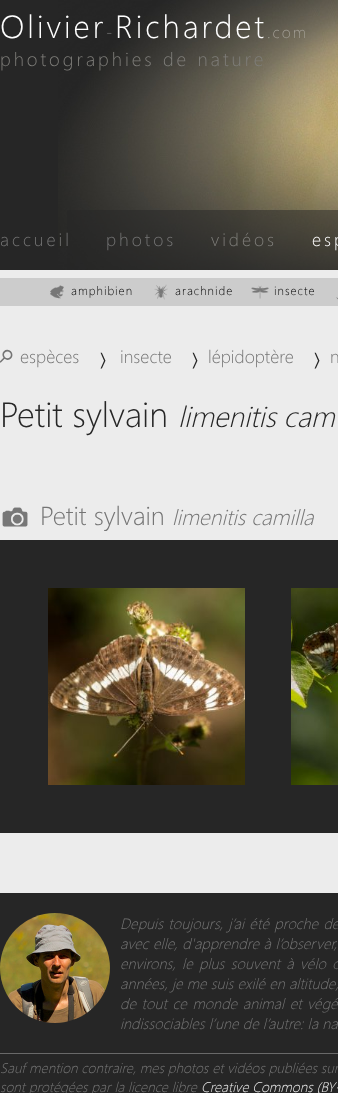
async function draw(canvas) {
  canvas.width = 338;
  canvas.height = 1093;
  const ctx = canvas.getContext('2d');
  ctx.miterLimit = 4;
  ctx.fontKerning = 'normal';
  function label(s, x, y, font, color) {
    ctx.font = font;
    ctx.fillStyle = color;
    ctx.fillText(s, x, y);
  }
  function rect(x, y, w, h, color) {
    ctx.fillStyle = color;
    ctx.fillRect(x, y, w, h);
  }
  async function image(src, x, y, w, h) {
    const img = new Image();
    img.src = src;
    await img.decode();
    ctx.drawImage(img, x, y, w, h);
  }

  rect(0, 0, 338, 1093, '#ececec');
  rect(0, 0, 58, 270, '#262626');
  await image('assets/img1.png', 58, 0, 280, 270);
  ctx.letterSpacing = '3px';
  label('Olivier', 0, 38, '300 32px Segoe UI', '#fff');
  ctx.letterSpacing = '2px';
  label('-', 106, 38, '300 16px Segoe UI', '#757575');
  ctx.letterSpacing = '3px';
  label('Richardet', 115, 38, '300 32px Segoe UI', '#fff');
  ctx.letterSpacing = '2px';
  label('.com', 267, 38, '300 16px Segoe UI', '#9f9b91');
  ctx.letterSpacing = '3px';
  label('photographies de nature', 0, 66, '300 19px Segoe UI', '#7f7e7a');
  rect(67, 210, 271, 60, '#26262680');
  label('accueil', 0, 246, '300 18px Segoe UI', '#757575');
  label('photos', 106, 246, '300 18px Segoe UI', '#757575');
  label('vidéos', 211, 246, '300 18px Segoe UI', '#7f7e7a');
  label('esp', 312, 246, '300 18px Segoe UI', '#fff');
  rect(0, 278, 338, 28, '#ccc');
  await image('assets/img2.png', 50, 285, 14, 14);
  ctx.letterSpacing = '1px';
  label('amphibien', 71, 295, '300 12px Segoe UI', '#000');
  await image('assets/img3.png', 154, 284, 14, 16);
  label('arachnide', 175, 295, '300 12px Segoe UI', '#000');
  await image('assets/img4.png', 251, 285, 18, 14);
  label('insecte', 274, 295, '300 12px Segoe UI', '#000');
  await image('assets/img5.png', 336, 297, 2, 3);
  ctx.letterSpacing = '0px';
  ctx.font = '18px DejaVu Sans';
  ctx.fillStyle = '#757575';
  ctx.save();
  ctx.translate(-3, 356);
  ctx.rotate(45 * Math.PI / 180);
  ctx.fillText('⚲', 0, 0);
  ctx.restore();
  label('espèces', 20, 363, '300 18px Segoe UI', '#757575');
  label('〉', 100, 366, '18px FreeSans', '#262626');
  label('insecte', 120, 363, '300 18px Segoe UI', '#757575');
  label('〉', 192, 366, '18px FreeSans', '#262626');
  label('lépidoptère', 208, 363, '300 18px Segoe UI', '#757575');
  label('〉', 314, 366, '18px FreeSans', '#262626');
  label('n', 330, 363, '300 18px Segoe UI', '#757575');
  label('Petit sylvain', 0, 427, '300 35px Segoe UI', '#262626');
  label('limenitis cam', 178, 427, 'italic 300 29px Segoe UI', '#262626');
  await image('assets/img6.png', 2, 507, 26, 20);
  label('Petit sylvain', 40, 525, '300 26px Segoe UI', '#757575');
  label('limenitis camilla', 172, 525, 'italic 300 21.75px Segoe UI', '#757575');
  rect(0, 540, 338, 293, '#262626');
  await image('assets/img7.png', 48, 588, 197, 197);
  await image('assets/img8.png', 291, 588, 47, 197);
  rect(0, 893, 338, 200, '#262626');
  rect(0, 1053, 338, 1, '#696969');
  await image('assets/img9.png', 0, 913, 110, 110);
  ctx.wordSpacing = '1.25px';
  label('Depuis toujours, j’ai été proche de', 120, 929, 'italic 300 15px Segoe UI', '#757575');
  ctx.wordSpacing = '0.5px';
  label('avec elle, d\'apprendre à l’observer,', 120, 949, 'italic 300 15px Segoe UI', '#757575');
  ctx.wordSpacing = '2.25px';
  label('environs, le plus souvent à vélo o', 120, 969, 'italic 300 15px Segoe UI', '#757575');
  ctx.wordSpacing = '0px';
  label('années, je me suis exilé en altitude,', 120, 989, 'italic 300 15px Segoe UI', '#757575');
  ctx.wordSpacing = '1.5px';
  label('de tout ce monde animal et végé', 120, 1009, 'italic 300 15px Segoe UI', '#757575');
  ctx.wordSpacing = '0px';
  label('indissociables l’une de l’autre: la na', 120, 1029, 'italic 300 15px Segoe UI', '#757575');
  label('Sauf mention contraire, mes photos et vidéos publiées sur', 0, 1073, 'italic 300 14px Segoe UI', '#757575');
  label('sont protégées par la licence libre', 0, 1092, 'italic 300 14px Segoe UI', '#757575');
  label('Creative Commons (BY-', 201, 1092, 'italic 300 14px Segoe UI', '#ececec');
}

draw(document.querySelector('canvas'));
